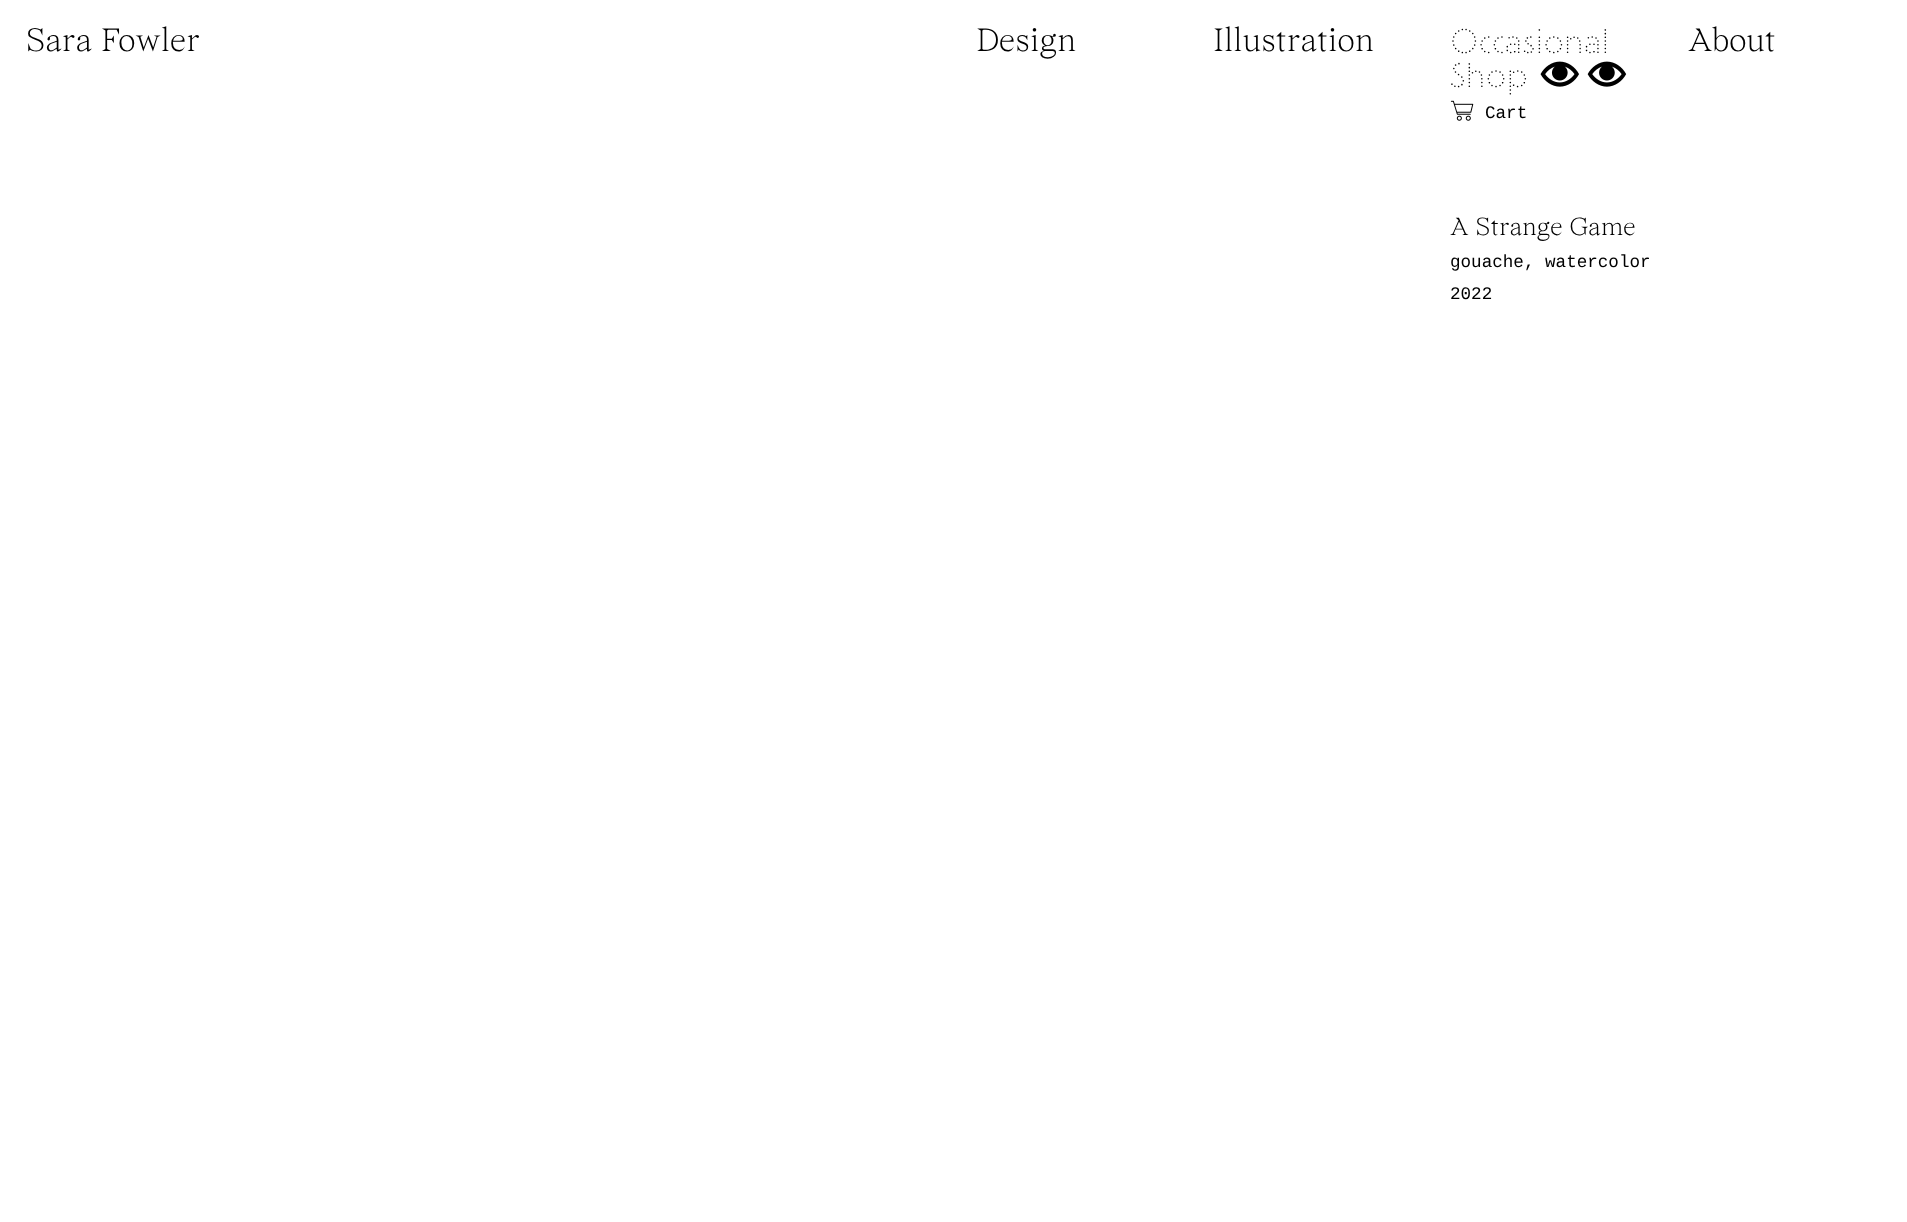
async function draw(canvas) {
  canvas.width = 1907;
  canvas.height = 1222;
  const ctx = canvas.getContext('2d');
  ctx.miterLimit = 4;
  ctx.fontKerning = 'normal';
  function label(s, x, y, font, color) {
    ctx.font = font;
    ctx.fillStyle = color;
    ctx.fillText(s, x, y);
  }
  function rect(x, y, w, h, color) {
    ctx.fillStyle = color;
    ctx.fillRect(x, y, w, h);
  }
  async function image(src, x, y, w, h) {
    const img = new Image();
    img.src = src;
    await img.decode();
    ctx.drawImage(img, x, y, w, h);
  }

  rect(0, 0, 1907, 1222, '#fff');
  label('Sara Fowler', 26, 51, '300 34.5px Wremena', '#000');
  label('Design', 976, 51, '300 34.5px Wremena', '#000');
  label('Illustration', 1213, 51, '300 34.5px Wremena', '#000');
  label('Occasional', 1450, 53, '34.5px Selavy', '#000');
  label('Shop', 1450, 87, '34.5px Selavy', '#000');
  await image('assets/img1.png', 1540, 61, 87, 26);
  await image('assets/img2.png', 1450, 100, 24, 21);
  label('Cart', 1485, 118, '17.6px Liberation Mono', '#000');
  label('About', 1688, 51, '300 34.5px Wremena', '#000');
  label('A Strange Game', 1450, 235, '300 26.5px Wremena', '#000');
  label('gouache, watercolor', 1450, 267, '17.6px Liberation Mono', '#000');
  label('2022', 1450, 299, '17.6px Liberation Mono', '#000');
}

draw(document.querySelector('canvas'));
